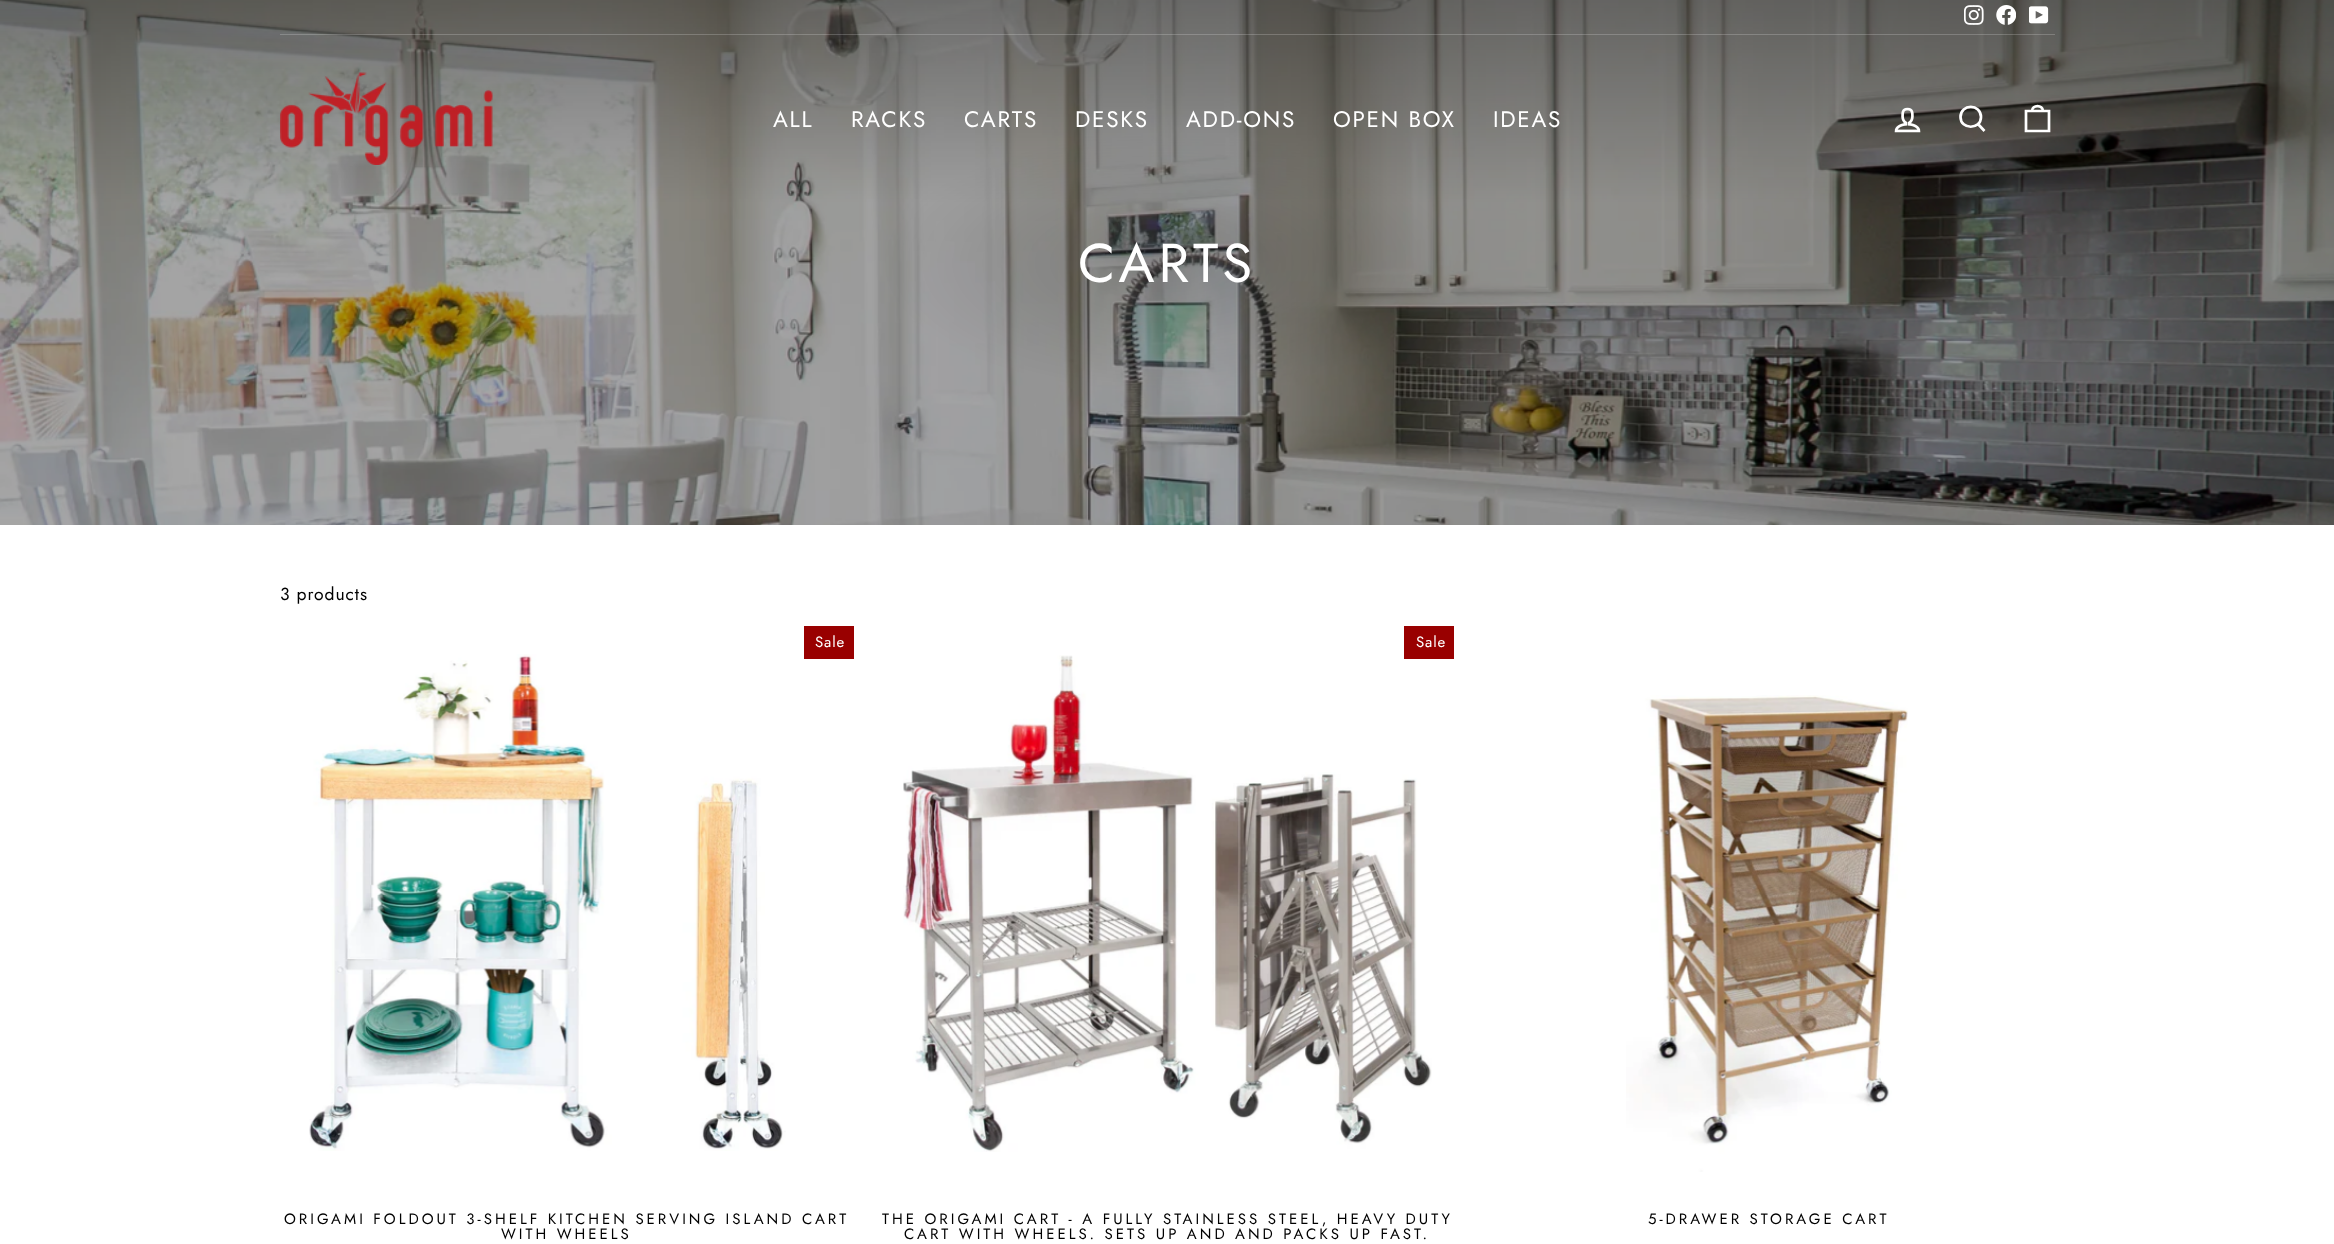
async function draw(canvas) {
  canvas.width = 2334;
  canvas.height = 1244;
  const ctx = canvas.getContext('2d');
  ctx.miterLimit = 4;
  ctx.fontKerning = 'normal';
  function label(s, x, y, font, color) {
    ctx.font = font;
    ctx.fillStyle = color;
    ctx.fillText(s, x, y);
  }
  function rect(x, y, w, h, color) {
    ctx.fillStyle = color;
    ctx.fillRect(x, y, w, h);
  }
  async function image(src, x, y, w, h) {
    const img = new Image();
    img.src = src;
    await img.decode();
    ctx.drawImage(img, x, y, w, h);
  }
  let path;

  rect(0, 0, 2334, 1244, '#fff');
  await image('assets/img6.png', 0, 0, 2334, 525);
  rect(280, 34, 1775, 1, '#ffffff33');
  await image('assets/img1.png', 1964, 5, 20, 20);
  await image('assets/img2.png', 1996, 5, 20, 20);
  await image('assets/img3.png', 2029, 6, 20, 18);
  await image('assets/img4.png', 280, 72, 213, 93);
  ctx.letterSpacing = '1.75px';
  label('ALL', 773, 127, '22.5px Jost', '#fff');
  label('RACKS', 851, 127, '22.5px Jost', '#fff');
  label('CARTS', 964, 127, '22.5px Jost', '#fff');
  label('DESKS', 1075, 127, '22.5px Jost', '#fff');
  label('ADD-ONS', 1186, 127, '22.5px Jost', '#fff');
  label('OPEN BOX', 1333, 127, '22.5px Jost', '#fff');
  label('IDEAS', 1493, 127, '22.5px Jost', '#fff');
  await image('assets/img5.png', 1894, 107, 27, 26);
  path = new Path2D('M1981 117C1981 130 1960.5 130 1960.5 117C1960.5 103.5 1981 103.5 1981 117ZM1984.5 131L1978 124');
  ctx.strokeStyle = '#fff';
  ctx.lineWidth = 2.7;
  ctx.stroke(path);
  path = new Path2D('M2026 111H2049V131H2026ZM2032 111C2032 104.5 2043 104.5 2043 111');
  ctx.stroke(path);
  ctx.letterSpacing = '4px';
  label('CARTS', 1078, 282, '54.5px Jost', '#fff');
  ctx.letterSpacing = '0.9px';
  label('3 products', 280, 600, '17.5px Jost', '#000');
  rect(804, 626, 50, 33, '#900');
  label('Sale', 815, 647, '15px Jost', '#fff');
  await image('assets/img7.png', 309, 654, 477, 497);
  ctx.letterSpacing = '3px';
  label('ORIGAMI FOLDOUT 3-SHELF KITCHEN SERVING ISLAND CART', 284, 1224, '15px Jost', '#000');
  label('WITH WHEELS', 501, 1239, '15px Jost', '#000');
  await image('assets/img8.png', 903, 655, 529, 497);
  rect(1404, 626, 50, 33, '#900');
  ctx.letterSpacing = '0.9px';
  label('Sale', 1416, 647, '15px Jost', '#fff');
  ctx.letterSpacing = '3px';
  label('THE ORIGAMI CART - A FULLY STAINLESS STEEL, HEAVY DUTY', 882, 1224, '15px Jost', '#000');
  label('CART WITH WHEELS. SETS UP AND AND PACKS UP FAST.', 904, 1239, '15px Jost', '#000');
  await image('assets/img9.png', 1626, 695, 282, 477);
  label('5-DRAWER STORAGE CART', 1648, 1224, '15px Jost', '#000');
}

draw(document.querySelector('canvas'));
